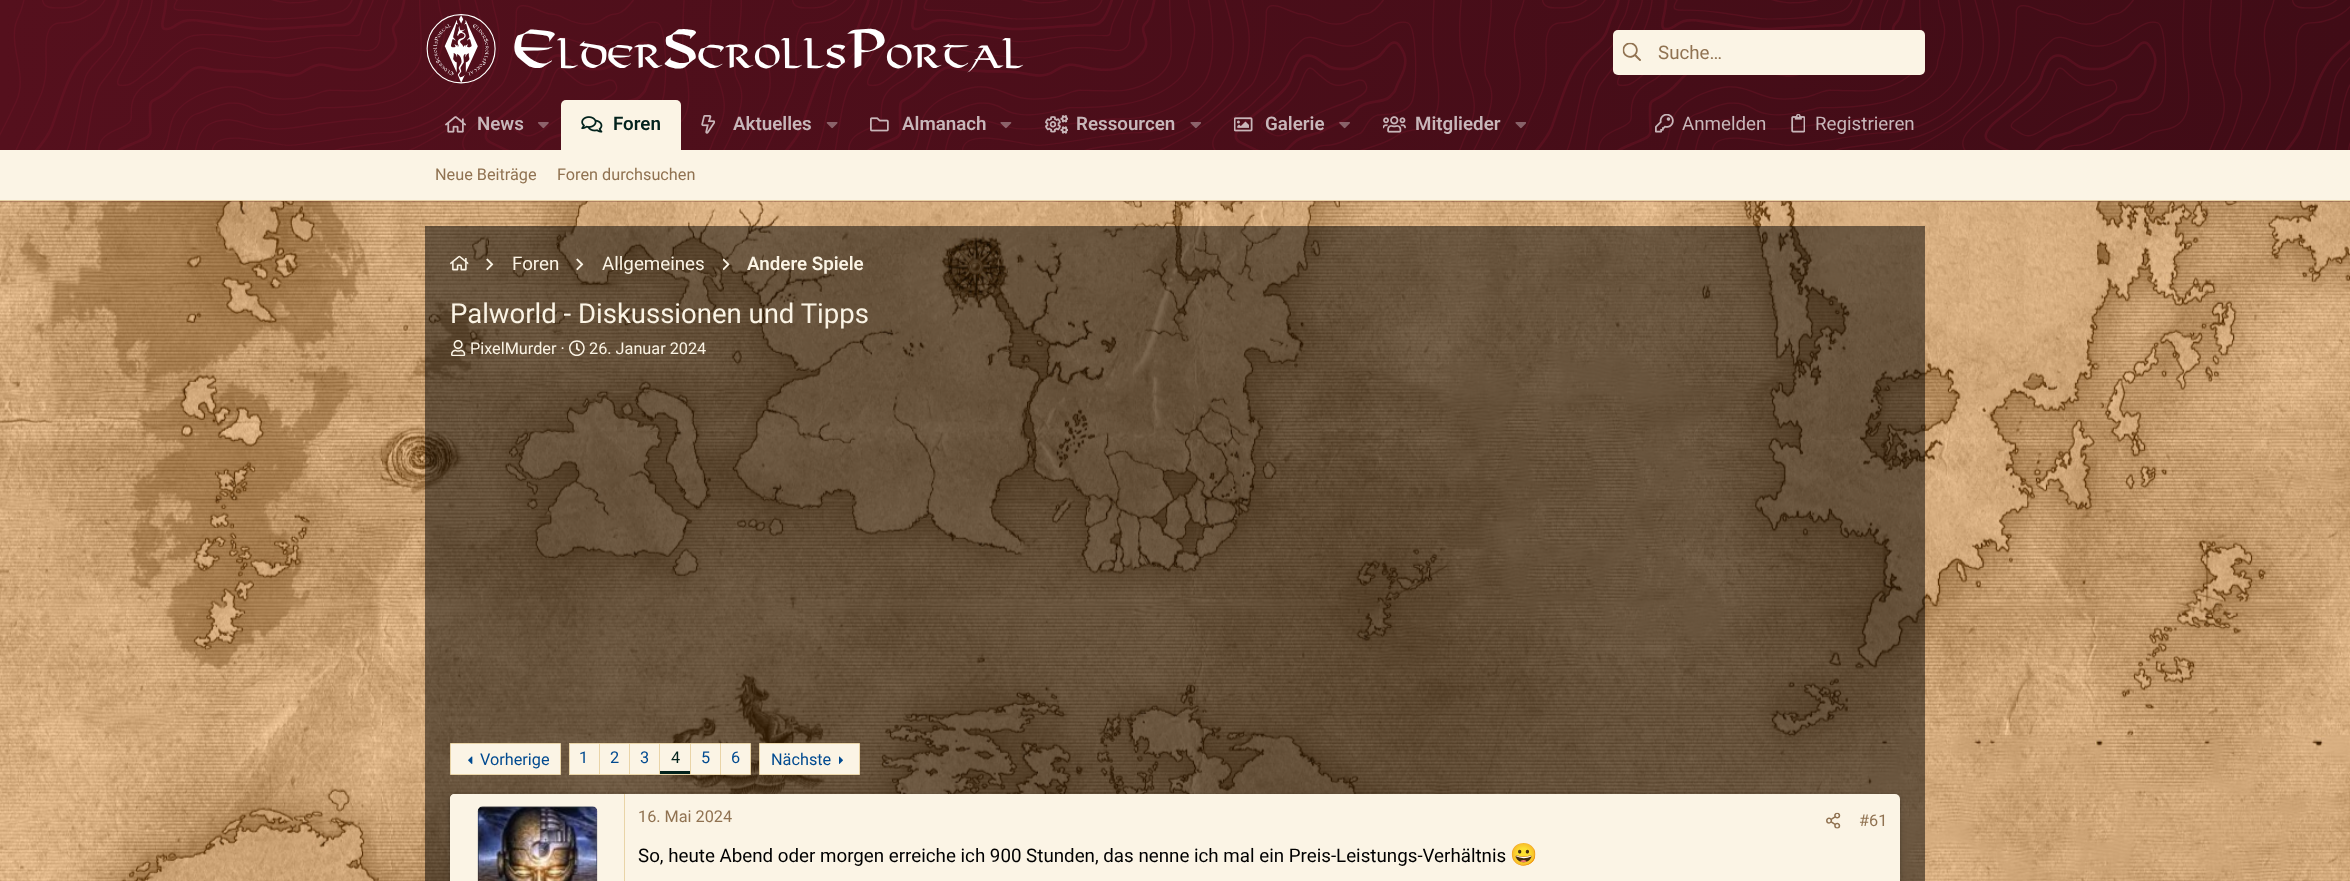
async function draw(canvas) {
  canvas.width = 2350;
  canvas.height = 881;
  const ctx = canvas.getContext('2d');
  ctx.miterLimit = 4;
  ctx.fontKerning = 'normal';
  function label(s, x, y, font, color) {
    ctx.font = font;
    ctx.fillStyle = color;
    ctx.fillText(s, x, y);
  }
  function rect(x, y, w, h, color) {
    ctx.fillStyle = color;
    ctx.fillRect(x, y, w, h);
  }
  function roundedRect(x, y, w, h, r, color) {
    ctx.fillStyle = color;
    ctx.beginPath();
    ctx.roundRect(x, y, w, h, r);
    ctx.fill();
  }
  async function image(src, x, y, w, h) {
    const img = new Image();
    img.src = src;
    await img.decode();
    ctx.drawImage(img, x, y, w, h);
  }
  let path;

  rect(0, 0, 2350, 881, '#fff');
  await image('assets/img1.png', 0, 201, 2350, 680);
  await image('assets/img20.png', 0, 201, 2350, 680);
  await image('assets/img2.png', 0, 0, 2350, 202);
  await image('assets/img3.png', 426, 14, 598, 70);
  roundedRect(1613, 30, 312, 45, 5, '#fbf4e5');
  await image('assets/img4.png', 1622, 42, 19, 19);
  label('Suche…', 1658, 59, '18.75px Roboto', '#907251');
  await image('assets/img5.png', 445, 116, 21, 17);
  label('News', 477, 130, '600 18.75px Roboto', '#c8b7ba');
  await image('assets/img6.png', 538, 122, 11, 7);
  ctx.fillStyle = '#fbf4e5';
  ctx.beginPath();
  ctx.roundRect(561, 100, 120, 50, [5, 5, 0, 0]);
  ctx.fill();
  await image('assets/img7.png', 581, 116, 22, 17);
  label('Foren', 613, 130, '600 18.75px Roboto', '#02221c');
  await image('assets/img8.png', 701, 115, 14, 19);
  label('Aktuelles', 733, 130, '600 18.75px Roboto', '#c8b7ba');
  await image('assets/img9.png', 826, 122, 12, 7);
  await image('assets/img10.png', 870, 117, 19, 15);
  label('Almanach', 902, 130, '600 18.75px Roboto', '#c8b7ba');
  await image('assets/img11.png', 1000, 122, 12, 7);
  await image('assets/img12.png', 1045, 115, 23, 19);
  label('Ressourcen', 1076, 130, '600 18.75px Roboto', '#c8b7ba');
  await image('assets/img13.png', 1190, 122, 11, 7);
  await image('assets/img14.png', 1234, 117, 19, 15);
  label('Galerie', 1265, 130, '600 18.75px Roboto', '#c8b7ba');
  await image('assets/img15.png', 1339, 122, 11, 7);
  await image('assets/img16.png', 1383, 116, 23, 17);
  label('Mitglieder', 1415, 130, '600 18.75px Roboto', '#c8b7ba');
  await image('assets/img17.png', 1515, 122, 11, 7);
  await image('assets/img18.png', 1655, 114, 19, 19);
  label('Anmelden', 1682, 130, '18.75px Roboto', '#c8b7ba');
  await image('assets/img19.png', 1791, 114, 14, 19);
  label('Registrieren', 1815, 130, '18.75px Roboto', '#c8b7ba');
  rect(0, 150, 2350, 50, '#fbf4e5');
  rect(0, 200, 2350, 1, '#e9d4a7');
  label('Neue Beiträge', 435, 180, '16.25px Roboto', '#907251');
  label('Foren durchsuchen', 557, 180, '16.25px Roboto', '#907251');
  rect(425, 226, 1500, 655, '#00000080');
  await image('assets/img21.png', 450, 255, 19, 16);
  await image('assets/img22.png', 486, 258, 8, 13);
  label('Foren', 512, 270, '18.75px Roboto', '#fbf4e5');
  await image('assets/img23.png', 576, 258, 8, 13);
  label('Allgemeines', 602, 270, '18.75px Roboto', '#fbf4e5');
  await image('assets/img24.png', 723, 258, 7, 13);
  label('Andere Spiele', 747, 270, '600 18.75px Roboto', '#fbf4e5');
  label('Palworld - Diskussionen und Tipps', 450, 323, '27.5px Roboto', '#fbf4e5');
  await image('assets/img25.png', 451, 340, 15, 16);
  label('PixelMurder ·', 470, 354, '16.25px Roboto', '#fbf4e5');
  await image('assets/img26.png', 569, 340, 16, 16);
  label('26. Januar 2024', 589, 354, '16.25px Roboto', '#fbf4e5');
  ctx.beginPath();
  ctx.rect(450.5, 743.5, 110, 31);
  ctx.fill();
  ctx.strokeStyle = '#e9d4a7';
  ctx.stroke();
  await image('assets/img27.png', 468, 756, 5, 8);
  label('Vorherige', 480, 765, '16.25px Roboto', '#004a90');
  rect(570, 744, 29, 30, '#fbf4e5');
  rect(569, 743, 151, 1, '#e9d4a7');
  rect(569, 774, 151, 1, '#e9d4a7');
  rect(569, 743, 1, 32, '#e9d4a7');
  label('1', 579, 763, '16.25px Roboto', '#004a90');
  rect(600, 744, 29, 30, '#fbf4e5');
  rect(599, 743, 1, 32, '#e9d4a7');
  label('2', 610, 763, '16.25px Roboto', '#004a90');
  rect(630, 744, 29, 30, '#fbf4e5');
  rect(629, 743, 1, 32, '#e9d4a7');
  label('3', 640, 763, '16.25px Roboto', '#004a90');
  rect(660, 744, 30, 27, '#fbf4e5');
  rect(660, 771, 30, 3, '#02221c');
  rect(659, 743, 1, 32, '#e9d4a7');
  label('4', 671, 763, '16.25px Roboto', '#02221c');
  rect(691, 744, 29, 30, '#fbf4e5');
  rect(690, 743, 1, 32, '#e9d4a7');
  label('5', 701, 763, '16.25px Roboto', '#004a90');
  ctx.fillStyle = '#fbf4e5';
  ctx.beginPath();
  ctx.rect(720.5, 743.5, 30, 31);
  ctx.fill();
  ctx.stroke();
  label('6', 731, 763, '16.25px Roboto', '#004a90');
  ctx.fillStyle = '#fbf4e5';
  ctx.beginPath();
  ctx.rect(759.5, 743.5, 100, 31);
  ctx.fill();
  ctx.stroke();
  label('Nächste', 771, 765, '16.25px Roboto', '#004a90');
  await image('assets/img28.png', 839, 756, 4, 8);
  ctx.fillStyle = '#00000033';
  ctx.filter = 'blur(3px)';
  ctx.beginPath();
  ctx.roundRect(450, 795, 1450, 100, 5);
  ctx.fill();
  ctx.filter = 'none';
  ctx.fillStyle = '#00000024';
  ctx.filter = 'blur(1px)';
  ctx.beginPath();
  ctx.roundRect(450, 796, 1450, 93, 5);
  ctx.fill();
  ctx.filter = 'none';
  roundedRect(450, 794, 1450, 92, 5, '#fbf4e5');
  path = new Path2D('M454 794H625V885H454C452 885 450 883 450 881V798C450 796 452 794 454 794Z');
  ctx.fill(path);
  rect(624, 794, 1, 87, '#e9d4a7');
  await image('assets/img29.png', 477, 806, 121, 75);
  label('16. Mai 2024', 638, 822, '16.25px Roboto', '#907251');
  await image('assets/img30.png', 1826, 812, 15, 17);
  label('#61', 1859, 826, '16.25px Roboto', '#907251');
  label('So, heute Abend oder morgen erreiche ich 900 Stunden, das nenne ich mal ein Preis-Leistungs-Verhältnis', 638, 862, '18.75px Roboto', '#000');
  label('😀', 1510, 862, '22px Noto Color Emoji', '#000');
}

draw(document.querySelector('canvas'));
